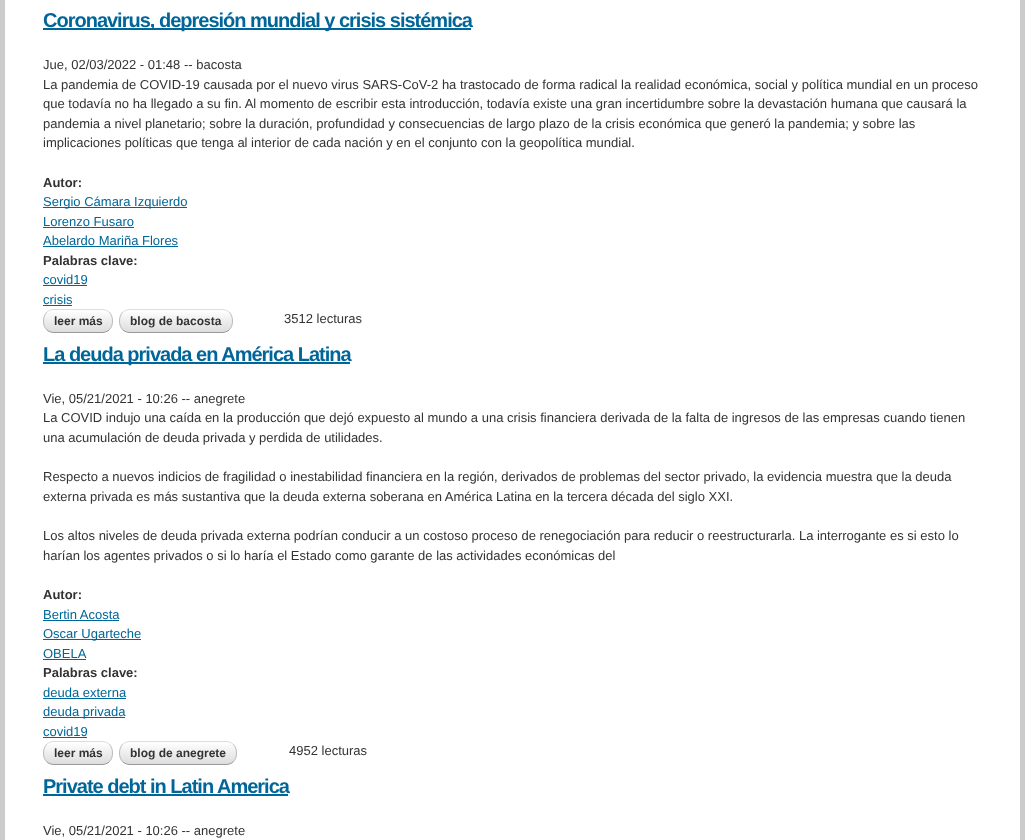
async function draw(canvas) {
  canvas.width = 1025;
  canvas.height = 840;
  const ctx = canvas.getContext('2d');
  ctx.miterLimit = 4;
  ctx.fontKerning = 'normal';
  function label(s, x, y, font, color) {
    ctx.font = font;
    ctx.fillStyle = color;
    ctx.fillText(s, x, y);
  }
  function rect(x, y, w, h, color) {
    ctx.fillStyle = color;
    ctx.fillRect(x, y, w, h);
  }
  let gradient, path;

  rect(0, 0, 1025, 840, '#ccc');
  rect(5, 0, 1015, 840, '#fff');
  rect(43, 28, 428, 2, '#069');
  ctx.letterSpacing = '-1px';
  label('Coronavirus, depresión mundial y crisis sistémica', 43, 27, 'bold 20px Liberation Sans', '#069');
  ctx.letterSpacing = '0px';
  label('Jue, 02/03/2022 - 01:48 -- bacosta', 43, 69, '13px Liberation Sans', '#333');
  label('La pandemia de COVID-19 causada por el nuevo virus SARS-CoV-2 ha trastocado de forma radical la realidad económica, social y política mundial en un proceso', 43, 89, '13px Liberation Sans', '#333');
  label('que todavía no ha llegado a su fin. Al momento de escribir esta introducción, todavía existe una gran incertidumbre sobre la devastación humana que causará la', 43, 108, '13px Liberation Sans', '#333');
  label('pandemia a nivel planetario; sobre la duración, profundidad y consecuencias de largo plazo de la crisis económica que generó la pandemia; y sobre las', 43, 128, '13px Liberation Sans', '#333');
  label('implicaciones políticas que tenga al interior de cada nación y en el conjunto con la geopolítica mundial.', 43, 147, '13px Liberation Sans', '#333');
  label('Autor:', 43, 187, 'bold 13px Liberation Sans', '#333');
  rect(43, 207, 144, 1, '#069');
  label('Sergio Cámara Izquierdo', 43, 206, '13px Liberation Sans', '#069');
  label('Lorenzo Fusaro', 43, 226, '13px Liberation Sans', '#069');
  rect(43, 227, 91, 1, '#069');
  label('Abelardo Mariña Flores', 43, 245, '13px Liberation Sans', '#069');
  rect(43, 246, 135, 1, '#069');
  label('Palabras clave:', 43, 265, 'bold 13px Liberation Sans', '#333');
  label('covid19', 43, 284, '13px Liberation Sans', '#069');
  rect(43, 285, 44, 1, '#069');
  label('crisis', 43, 304, '13px Liberation Sans', '#069');
  rect(43, 305, 29, 1, '#069');
  ctx.save();
  ctx.beginPath();
  ctx.roundRect(43, 309, 70, 24, 11);
  ctx.clip();
  gradient = ctx.createLinearGradient(44, 310, 44, 332);
  gradient.addColorStop(0, '#fff');
  gradient.addColorStop(1, '#ddd');
  ctx.fillStyle = gradient;
  ctx.fillRect(43, 310, 70, 22);
  ctx.restore();
  path = new Path2D('M46.5 312.5C48.5 310.5 51 309.5 54 309.5H102C105 309.5 107.5 310.5 109.5 312.5');
  ctx.strokeStyle = '#ddd';
  ctx.stroke(path);
  path = new Path2D('M109.5 312.5C113.5 317 113.5 325 109.5 329.5');
  ctx.strokeStyle = '#bbb';
  ctx.stroke(path);
  path = new Path2D('M109.5 329.5C107.5 331.5 105 332.5 102 332.5H54C51 332.5 48.5 331.5 46.5 329.5');
  ctx.strokeStyle = '#999';
  ctx.stroke(path);
  path = new Path2D('M46.5 329.5C42.5 325 42.5 317 46.5 312.5');
  ctx.strokeStyle = '#bbb';
  ctx.stroke(path);
  label('leer más', 54, 325, 'bold 12px Liberation Sans', '#333');
  ctx.save();
  ctx.beginPath();
  ctx.roundRect(119, 309, 114, 24, 11);
  ctx.clip();
  gradient = ctx.createLinearGradient(120, 310, 120, 332);
  gradient.addColorStop(0, '#fff');
  gradient.addColorStop(1, '#ddd');
  ctx.fillStyle = gradient;
  ctx.fillRect(119, 310, 114, 22);
  ctx.restore();
  path = new Path2D('M122.5 312.5C124.5 310.5 127 309.5 130 309.5H222C225 309.5 227.5 310.5 229.5 312.5');
  ctx.strokeStyle = '#ddd';
  ctx.stroke(path);
  path = new Path2D('M229.5 312.5C233.5 317 233.5 325 229.5 329.5');
  ctx.strokeStyle = '#bbb';
  ctx.stroke(path);
  path = new Path2D('M229.5 329.5C227.5 331.5 225 332.5 222 332.5H130C127 332.5 124.5 331.5 122.5 329.5');
  ctx.strokeStyle = '#999';
  ctx.stroke(path);
  path = new Path2D('M122.5 329.5C118.5 325 118.5 317 122.5 312.5');
  ctx.strokeStyle = '#bbb';
  ctx.stroke(path);
  label('blog de bacosta', 130, 325, 'bold 12px Liberation Sans', '#333');
  label('3512 lecturas', 284, 323, '13px Liberation Sans', '#333');
  rect(43, 362, 307, 2, '#069');
  ctx.letterSpacing = '-1px';
  label('La deuda privada en América Latina', 43, 361, 'bold 20px Liberation Sans', '#069');
  ctx.letterSpacing = '0px';
  label('Vie, 05/21/2021 - 10:26 -- anegrete', 43, 403, '13px Liberation Sans', '#333');
  label('La COVID indujo una caída en la producción que dejó expuesto al mundo a una crisis financiera derivada de la falta de ingresos de las empresas cuando tienen', 43, 422, '13px Liberation Sans', '#333');
  label('una acumulación de deuda privada y perdida de utilidades.', 43, 442, '13px Liberation Sans', '#333');
  label('Respecto a nuevos indicios de fragilidad o inestabilidad financiera en la región, derivados de problemas del sector privado, la evidencia muestra que la deuda', 43, 481, '13px Liberation Sans', '#333');
  label('externa privada es más sustantiva que la deuda externa soberana en América Latina en la tercera década del siglo XXI.', 43, 501, '13px Liberation Sans', '#333');
  label('Los altos niveles de deuda privada externa podrían conducir a un costoso proceso de renegociación para reducir o reestructurarla. La interrogante es si esto lo', 43, 540, '13px Liberation Sans', '#333');
  label('harían los agentes privados o si lo haría el Estado como garante de las actividades económicas del', 43, 560, '13px Liberation Sans', '#333');
  label('Autor:', 43, 599, 'bold 13px Liberation Sans', '#333');
  label('Bertin Acosta', 43, 619, '13px Liberation Sans', '#069');
  rect(43, 620, 76, 1, '#069');
  rect(43, 639, 98, 1, '#069');
  label('Oscar Ugarteche', 43, 638, '13px Liberation Sans', '#069');
  label('OBELA', 43, 658, '13px Liberation Sans', '#069');
  rect(43, 659, 43, 1, '#069');
  label('Palabras clave:', 43, 677, 'bold 13px Liberation Sans', '#333');
  label('deuda externa', 43, 697, '13px Liberation Sans', '#069');
  rect(43, 698, 83, 1, '#069');
  rect(43, 717, 82, 1, '#069');
  label('deuda privada', 43, 716, '13px Liberation Sans', '#069');
  label('covid19', 43, 736, '13px Liberation Sans', '#069');
  rect(43, 737, 44, 1, '#069');
  ctx.save();
  ctx.beginPath();
  ctx.roundRect(43, 741, 70, 24, 11);
  ctx.clip();
  gradient = ctx.createLinearGradient(44, 742, 44, 764);
  gradient.addColorStop(0, '#fff');
  gradient.addColorStop(1, '#ddd');
  ctx.fillStyle = gradient;
  ctx.fillRect(43, 742, 70, 22);
  ctx.restore();
  path = new Path2D('M46.5 744.5C48.5 742.5 51 741.5 54 741.5H102C105 741.5 107.5 742.5 109.5 744.5');
  ctx.strokeStyle = '#ddd';
  ctx.stroke(path);
  path = new Path2D('M109.5 744.5C113.5 749 113.5 757 109.5 761.5');
  ctx.strokeStyle = '#bbb';
  ctx.stroke(path);
  path = new Path2D('M109.5 761.5C107.5 763.5 105 764.5 102 764.5H54C51 764.5 48.5 763.5 46.5 761.5');
  ctx.strokeStyle = '#999';
  ctx.stroke(path);
  path = new Path2D('M46.5 761.5C42.5 757 42.5 749 46.5 744.5');
  ctx.strokeStyle = '#bbb';
  ctx.stroke(path);
  label('leer más', 54, 757, 'bold 12px Liberation Sans', '#333');
  ctx.save();
  ctx.beginPath();
  ctx.roundRect(119, 741, 118, 24, 11);
  ctx.clip();
  gradient = ctx.createLinearGradient(120, 742, 120, 764);
  gradient.addColorStop(0, '#fff');
  gradient.addColorStop(1, '#ddd');
  ctx.fillStyle = gradient;
  ctx.fillRect(119, 742, 118, 22);
  ctx.restore();
  path = new Path2D('M122.5 744.5C124.5 742.5 127 741.5 130 741.5H226C229 741.5 231.5 742.5 233.5 744.5');
  ctx.strokeStyle = '#ddd';
  ctx.stroke(path);
  path = new Path2D('M233.5 744.5C237.5 749 237.5 757 233.5 761.5');
  ctx.strokeStyle = '#bbb';
  ctx.stroke(path);
  path = new Path2D('M233.5 761.5C231.5 763.5 229 764.5 226 764.5H130C127 764.5 124.5 763.5 122.5 761.5');
  ctx.strokeStyle = '#999';
  ctx.stroke(path);
  path = new Path2D('M122.5 761.5C118.5 757 118.5 749 122.5 744.5');
  ctx.strokeStyle = '#bbb';
  ctx.stroke(path);
  label('blog de anegrete', 130, 757, 'bold 12px Liberation Sans', '#333');
  label('4952 lecturas', 289, 755, '13px Liberation Sans', '#333');
  ctx.letterSpacing = '-1px';
  label('Private debt in Latin America', 43, 793, 'bold 20px Liberation Sans', '#069');
  rect(43, 794, 245, 2, '#069');
  ctx.letterSpacing = '0px';
  label('Vie, 05/21/2021 - 10:26 -- anegrete', 43, 835, '13px Liberation Sans', '#333');
}

draw(document.querySelector('canvas'));
